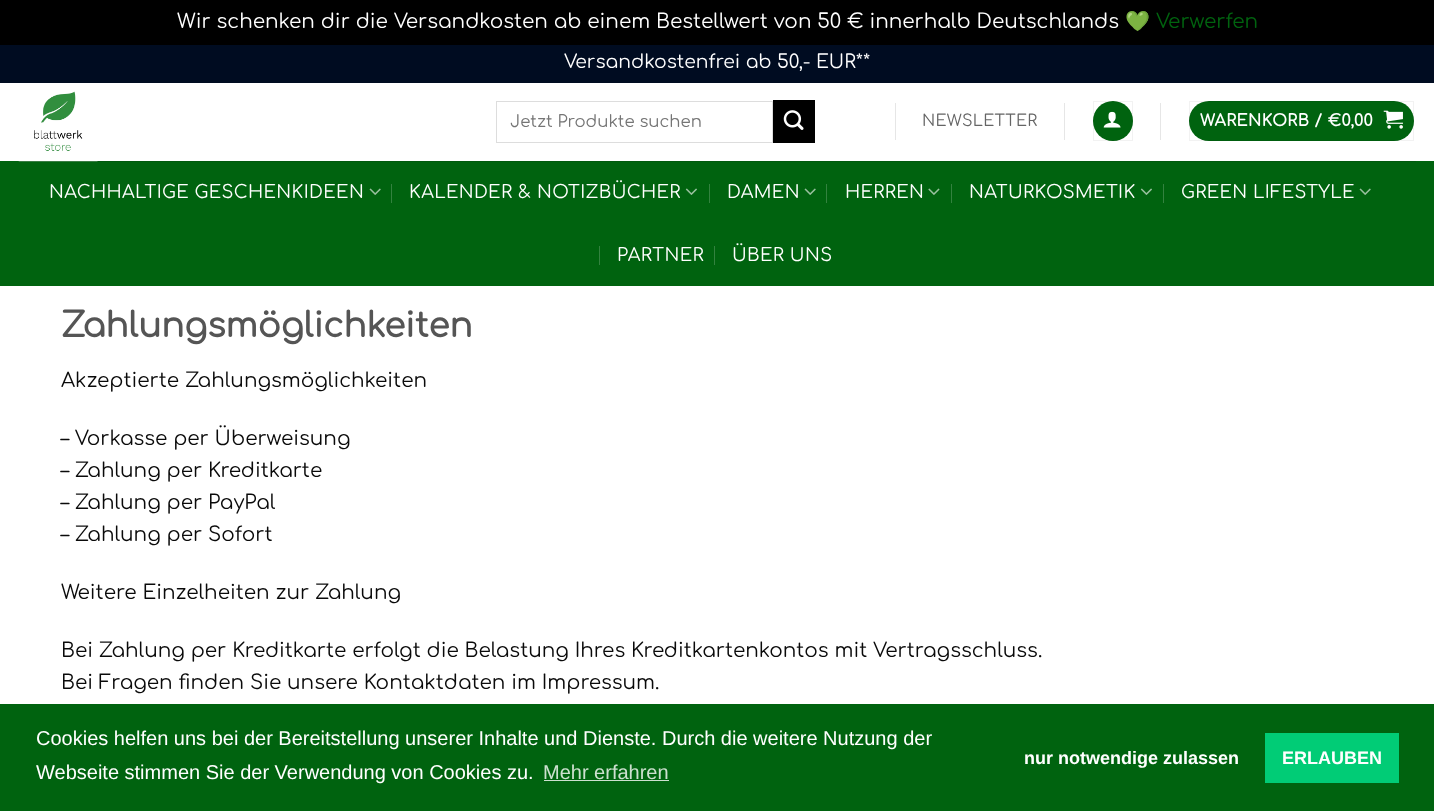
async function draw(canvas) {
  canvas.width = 1434;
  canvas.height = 811;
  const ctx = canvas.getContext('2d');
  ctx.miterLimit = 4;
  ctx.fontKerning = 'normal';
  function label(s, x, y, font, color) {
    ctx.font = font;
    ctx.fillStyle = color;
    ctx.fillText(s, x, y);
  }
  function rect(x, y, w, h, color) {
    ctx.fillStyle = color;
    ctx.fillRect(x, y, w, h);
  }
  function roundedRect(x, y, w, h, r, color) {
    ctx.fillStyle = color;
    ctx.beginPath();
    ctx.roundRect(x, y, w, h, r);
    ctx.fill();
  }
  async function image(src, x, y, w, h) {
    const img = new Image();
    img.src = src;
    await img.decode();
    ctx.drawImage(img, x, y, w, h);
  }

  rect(0, 0, 1434, 811, '#000');
  label('Wir schenken dir die Versandkosten ab einem Bestellwert von 50 € innerhalb Deutschlands', 177, 28, '20px Comfortaa', '#fff');
  label('💚', 1125, 28, '20px Noto Color Emoji', '#fff');
  label('Verwerfen', 1156, 28, '20px Comfortaa', '#00630f');
  rect(0, 83, 1434, 621, '#fff');
  rect(0, 45, 1434, 38, '#000c21');
  label('Versandkostenfrei ab 50,- EUR**', 564, 68, '18.75px Comfortaa', '#fff');
  rect(0, 161, 1434, 125, '#00630f');
  await image('assets/img1.png', 18, 91, 80, 71);
  ctx.strokeStyle = '#ddd';
  ctx.strokeRect(496.5, 101.5, 276, 41);
  label('Jetzt Produkte suchen', 510, 127, '16.5px Comfortaa', '#757575');
  rect(773, 100, 42, 43, '#000');
  await image('assets/img2.png', 783, 110, 21, 20);
  rect(895, 103, 1, 37, '#e6e6e6');
  ctx.letterSpacing = '0.25px';
  label('NEWSLETTER', 922, 126, '16px Comfortaa', '#656565');
  rect(1064, 103, 1, 37, '#e6e6e6');
  ctx.fillStyle = '#00630f';
  ctx.beginPath();
  ctx.arc(1113, 121, 20, 0, 2 * Math.PI);
  ctx.fill();
  ctx.strokeStyle = '#0000000d';
  ctx.strokeRect(1093.5, 101.5, 39, 39);
  await image('assets/img3.png', 1103, 111, 18, 17);
  rect(1160, 103, 1, 37, '#e6e6e6');
  roundedRect(1189, 101, 225, 40, 20, '#00630f');
  ctx.strokeRect(1189.5, 101.5, 224, 39);
  ctx.letterSpacing = '0.5px';
  label('WARENKORB / €0,00', 1200, 126, 'bold 16px Comfortaa', '#fff');
  await image('assets/img4.png', 1383, 110, 20, 19);
  rect(19, 161, 1397, 1, '#0a0a0a1a');
  ctx.letterSpacing = '0.35px';
  label('NACHHALTIGE GESCHENKIDEEN', 49, 198, '18px Comfortaa', '#fff');
  await image('assets/img5.png', 369, 188, 12, 7);
  rect(391, 184, 1, 19, '#33823f');
  label('KALENDER & NOTIZBÜCHER', 409, 198, '18px Comfortaa', '#fff');
  await image('assets/img6.png', 685, 188, 12, 7);
  rect(709, 184, 1, 19, '#33823f');
  label('DAMEN', 727, 198, '18px Comfortaa', '#fff');
  await image('assets/img5.png', 804, 188, 12, 7);
  rect(826, 184, 1, 19, '#33823f');
  label('HERREN', 845, 198, '18px Comfortaa', '#fff');
  await image('assets/img7.png', 928, 188, 12, 7);
  rect(951, 184, 1, 19, '#33823f');
  label('NATURKOSMETIK', 969, 198, '18px Comfortaa', '#fff');
  await image('assets/img6.png', 1140, 188, 12, 7);
  rect(1163, 184, 1, 19, '#33823f');
  label('GREEN LIFESTYLE', 1181, 198, '18px Comfortaa', '#fff');
  await image('assets/img5.png', 1359, 188, 12, 7);
  rect(599, 246, 1, 19, '#33823f');
  label('PARTNER', 617, 261, '18px Comfortaa', '#fff');
  rect(714, 246, 1, 19, '#33823f');
  label('ÜBER UNS', 732, 261, '18px Comfortaa', '#fff');
  ctx.letterSpacing = '0px';
  label('Zahlungsmöglichkeiten', 61, 337, 'bold 34px Comfortaa', '#555');
  label('Akzeptierte Zahlungsmöglichkeiten', 61, 387, '20px Comfortaa', '#0a0a0a');
  label('– Vorkasse per Überweisung', 61, 445, '20px Comfortaa', '#0a0a0a');
  label('– Zahlung per Kreditkarte', 61, 477, '20px Comfortaa', '#0a0a0a');
  label('– Zahlung per PayPal', 61, 509, '20px Comfortaa', '#0a0a0a');
  label('– Zahlung per Sofort', 61, 541, '20px Comfortaa', '#0a0a0a');
  label('Weitere Einzelheiten zur Zahlung', 61, 599, '20px Comfortaa', '#0a0a0a');
  label('Bei Zahlung per Kreditkarte erfolgt die Belastung Ihres Kreditkartenkontos mit Vertragsschluss.', 61, 657, '20px Comfortaa', '#0a0a0a');
  label('Bei Fragen finden Sie unsere Kontaktdaten im Impressum.', 61, 689, '20px Comfortaa', '#0a0a0a');
  rect(0, 704, 1434, 107, '#00630f');
  label('Cookies helfen uns bei der Bereitstellung unserer Inhalte und Dienste. Durch die weitere Nutzung der', 36, 745, '20px Liberation Sans', '#fff');
  label('Webseite stimmen Sie der Verwendung von Cookies zu.', 36, 779, '20px Liberation Sans', '#fff');
  label('Mehr erfahren', 543, 779, '20px Liberation Sans', '#cce0cf');
  rect(544, 780, 125, 1, '#cce0cf');
  label('nur notwendige zulassen', 1024, 764, 'bold 18px Liberation Sans', '#fff');
  rect(1265, 733, 134, 50, '#01cc76');
  label('ERLAUBEN', 1282, 764, 'bold 18px Liberation Sans', '#fff');
}

draw(document.querySelector('canvas'));
